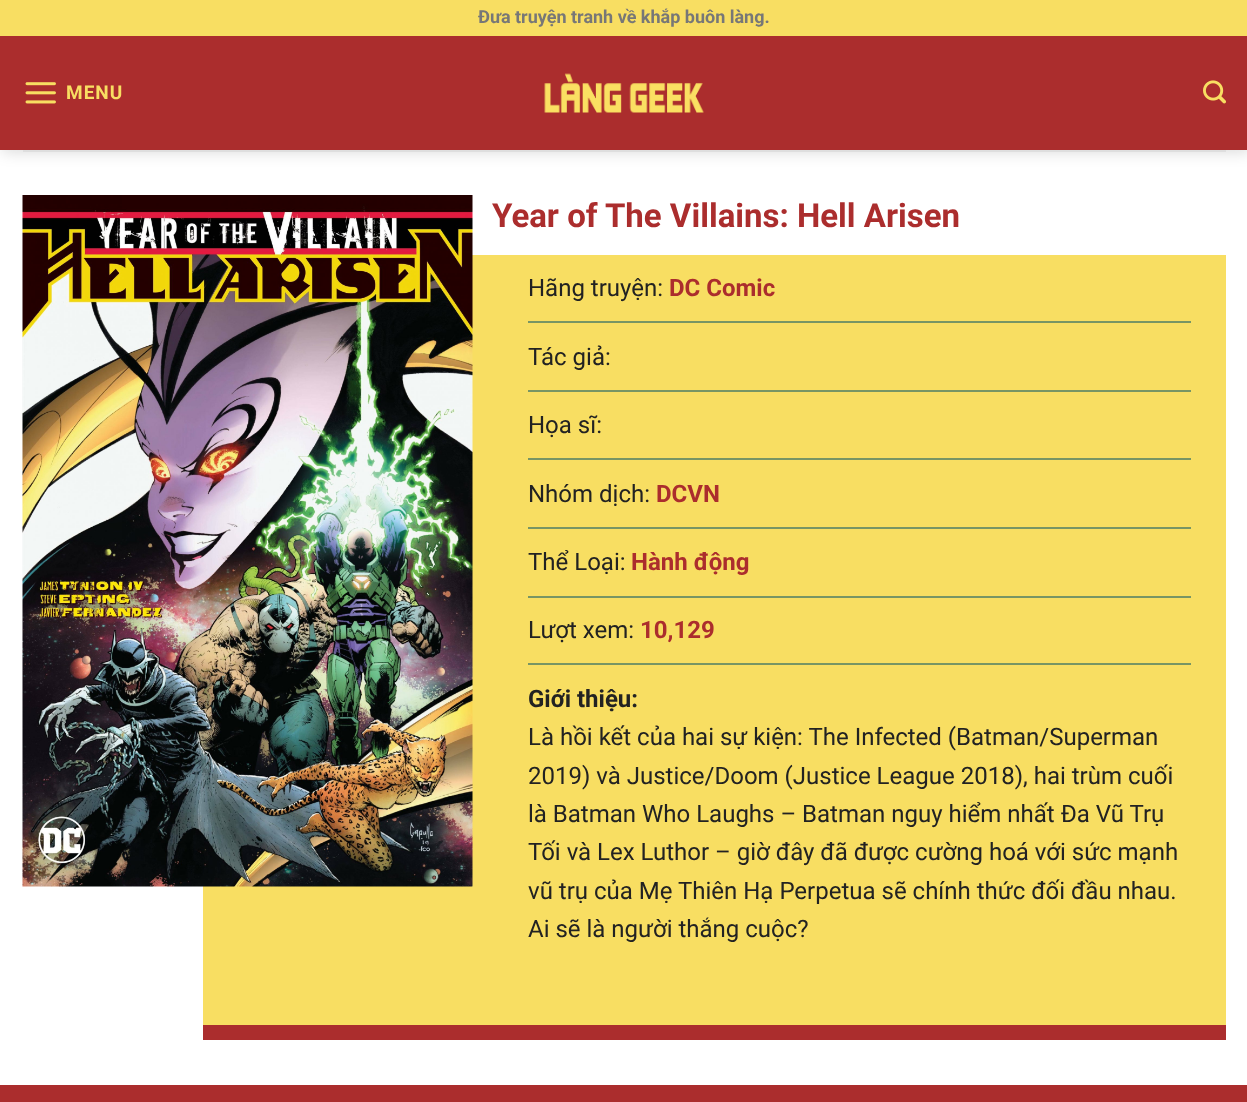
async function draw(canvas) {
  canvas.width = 1247;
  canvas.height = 1102;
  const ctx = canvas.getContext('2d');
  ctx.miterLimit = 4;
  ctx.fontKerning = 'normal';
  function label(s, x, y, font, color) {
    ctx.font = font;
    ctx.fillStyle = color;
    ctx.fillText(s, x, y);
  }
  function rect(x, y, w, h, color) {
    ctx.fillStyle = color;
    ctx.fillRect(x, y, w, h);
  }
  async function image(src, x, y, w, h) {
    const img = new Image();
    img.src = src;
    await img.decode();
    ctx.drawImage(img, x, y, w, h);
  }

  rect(0, 0, 1247, 1102, '#fff');
  ctx.fillStyle = '#00000026';
  ctx.filter = 'blur(7.5px)';
  ctx.beginPath();
  ctx.rect(2, 2, 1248, 150);
  ctx.fill();
  ctx.filter = 'none';
  rect(0, 36, 1247, 114, '#ab2d2d');
  rect(0, 0, 1247, 36, '#f8de62');
  label('Đưa truyện tranh về khắp buôn làng.', 478, 23, 'bold 18px Roboto', '#777');
  await image('assets/img1.png', 25, 82, 31, 22);
  ctx.letterSpacing = '1px';
  label('MENU', 66, 99, 'bold 19px Roboto', '#f8de62');
  await image('assets/img2.png', 544, 73, 160, 40);
  await image('assets/img3.png', 1203, 80, 23, 24);
  rect(23, 150, 1203, 2, '#dedede');
  rect(203, 255, 1023, 770, '#f8de62');
  await image('assets/img4.png', 22, 195, 451, 692);
  ctx.letterSpacing = '0px';
  label('Year of The Villains: Hell Arisen', 492, 227, 'bold 33px Roboto', '#ab2d2d');
  rect(203, 1025, 1023, 15, '#ab2d2d');
  rect(528, 321, 663, 2, '#789564');
  label('Hãng truyện:', 528, 296, '24px Roboto', '#222');
  label('DC Comic', 669, 296, 'bold 24px Roboto', '#ab2d2d');
  rect(528, 390, 663, 2, '#789564');
  label('Tác giả:', 528, 365, '24px Roboto', '#222');
  rect(528, 458, 663, 2, '#789564');
  label('Họa sĩ:', 528, 433, '24px Roboto', '#222');
  rect(528, 527, 663, 2, '#789564');
  label('Nhóm dịch:', 528, 502, '24px Roboto', '#222');
  label('DCVN', 656, 502, 'bold 24px Roboto', '#ab2d2d');
  rect(528, 596, 663, 2, '#789564');
  label('Thể Loại:', 528, 570, '24px Roboto', '#222');
  label('Hành động', 631, 570, 'bold 24px Roboto', '#ab2d2d');
  rect(528, 663, 663, 2, '#789564');
  label('Lượt xem:', 528, 638, '24px Roboto', '#222');
  label('10,129', 640, 638, 'bold 24px Roboto', '#ab2d2d');
  label('Giới thiệu:', 528, 707, 'bold 24px Roboto', '#222');
  label('Là hồi kết của hai sự kiện: The Infected (Batman/Superman', 528, 745, '24px Roboto', '#222');
  label('2019) và Justice/Doom (Justice League 2018), hai trùm cuối', 528, 784, '24px Roboto', '#222');
  label('là Batman Who Laughs – Batman nguy hiểm nhất Đa Vũ Trụ', 528, 822, '24px Roboto', '#222');
  label('Tối và Lex Luthor – giờ đây đã được cường hoá với sức mạnh', 528, 860, '24px Roboto', '#222');
  label('vũ trụ của Mẹ Thiên Hạ Perpetua sẽ chính thức đối đầu nhau.', 528, 899, '24px Roboto', '#222');
  label('Ai sẽ là người thắng cuộc?', 528, 937, '24px Roboto', '#222');
  rect(0, 1085, 1247, 17, '#ab2d2d');
}

draw(document.querySelector('canvas'));
